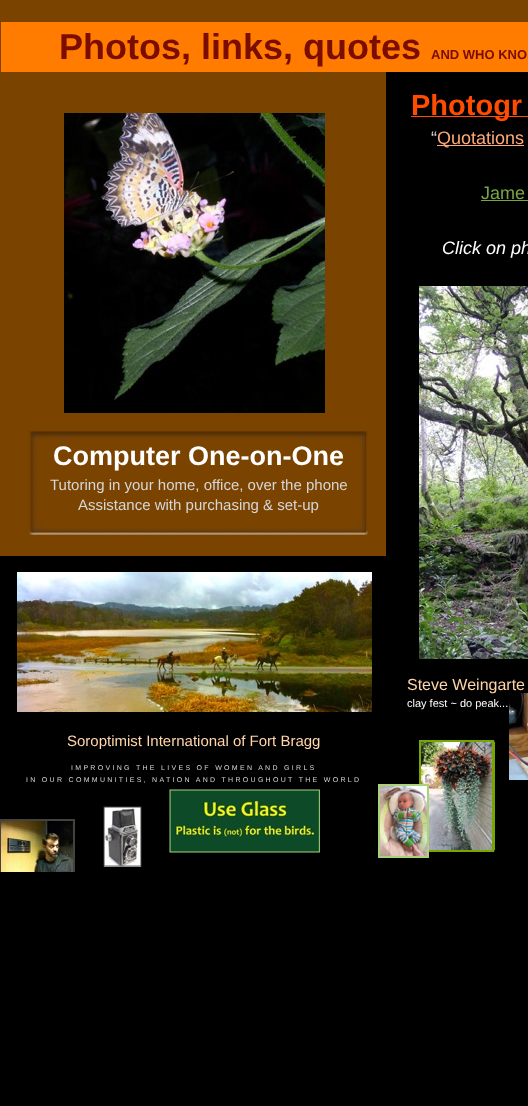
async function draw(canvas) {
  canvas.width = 528;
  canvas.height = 1106;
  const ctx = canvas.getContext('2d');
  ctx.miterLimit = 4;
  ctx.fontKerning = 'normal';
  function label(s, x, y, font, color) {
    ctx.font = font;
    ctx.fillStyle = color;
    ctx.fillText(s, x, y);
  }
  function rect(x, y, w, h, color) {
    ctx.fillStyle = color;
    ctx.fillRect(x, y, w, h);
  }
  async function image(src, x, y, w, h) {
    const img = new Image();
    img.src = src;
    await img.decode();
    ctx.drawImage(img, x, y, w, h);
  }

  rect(0, 0, 528, 1106, '#000');
  rect(386, 0, 142, 22, '#7a4300');
  rect(0, 0, 386, 556, '#7a4300');
  rect(1, 22, 527, 50, '#ff7c00');
  label('Photos, links, quotes', 59, 59, 'bold 36px Liberation Sans', '#7b0c00');
  label('AND WHO KNO', 431, 59, 'bold 13px Liberation Sans', '#7b0c00');
  rect(411, 116, 117, 1, '#ff4c00');
  label('Photogr', 411, 115, 'bold 29px Liberation Sans', '#ff4c00');
  label('“', 431, 144, '18px Liberation Sans', '#d6d6d6');
  rect(437, 145, 87, 1, '#ffaa79');
  label('Quotations', 437, 144, '18px Liberation Sans', '#ffaa79');
  label('Jame', 481, 199, '18px Liberation Sans', '#78a642');
  rect(481, 200, 47, 1, '#78a642');
  label('Click on ph', 442, 254, 'italic 18px Liberation Sans', '#fff');
  await image('assets/img1.png', 64, 113, 261, 300);
  await image('assets/img2.png', 419, 286, 109, 373);
  await image('assets/img3.png', 29, 431, 15, 14);
  await image('assets/img4.png', 44, 431, 15, 8);
  await image('assets/img4.png', 59, 431, 15, 8);
  await image('assets/img4.png', 74, 431, 15, 8);
  await image('assets/img4.png', 89, 431, 15, 8);
  await image('assets/img4.png', 104, 431, 15, 8);
  await image('assets/img4.png', 119, 431, 15, 8);
  await image('assets/img4.png', 134, 431, 15, 8);
  await image('assets/img4.png', 149, 431, 15, 8);
  await image('assets/img4.png', 164, 431, 15, 8);
  await image('assets/img4.png', 179, 431, 15, 8);
  await image('assets/img4.png', 194, 431, 15, 8);
  await image('assets/img4.png', 209, 431, 15, 8);
  await image('assets/img4.png', 224, 431, 15, 8);
  await image('assets/img4.png', 239, 431, 15, 8);
  await image('assets/img4.png', 254, 431, 15, 8);
  await image('assets/img4.png', 269, 431, 15, 8);
  await image('assets/img4.png', 284, 431, 15, 8);
  await image('assets/img4.png', 299, 431, 15, 8);
  await image('assets/img4.png', 314, 431, 15, 8);
  await image('assets/img4.png', 329, 431, 15, 8);
  await image('assets/img5.png', 344, 431, 9, 8);
  await image('assets/img6.png', 353, 431, 15, 14);
  await image('assets/img7.png', 29, 445, 8, 15);
  await image('assets/img7.png', 29, 460, 8, 15);
  await image('assets/img7.png', 29, 475, 8, 15);
  await image('assets/img7.png', 29, 490, 8, 15);
  await image('assets/img7.png', 29, 505, 8, 15);
  await image('assets/img8.png', 361, 445, 6, 15);
  await image('assets/img8.png', 361, 460, 6, 15);
  await image('assets/img8.png', 361, 475, 6, 15);
  await image('assets/img8.png', 361, 490, 6, 15);
  await image('assets/img8.png', 361, 505, 6, 15);
  await image('assets/img9.png', 29, 520, 15, 15);
  await image('assets/img10.png', 44, 528, 15, 7);
  await image('assets/img10.png', 59, 528, 15, 7);
  await image('assets/img10.png', 74, 528, 15, 7);
  await image('assets/img10.png', 89, 528, 15, 7);
  await image('assets/img10.png', 104, 528, 15, 7);
  await image('assets/img10.png', 119, 528, 15, 7);
  await image('assets/img10.png', 134, 528, 15, 7);
  await image('assets/img10.png', 149, 528, 15, 7);
  await image('assets/img10.png', 164, 528, 15, 7);
  await image('assets/img10.png', 179, 528, 15, 7);
  await image('assets/img10.png', 194, 528, 15, 7);
  await image('assets/img10.png', 209, 528, 15, 7);
  await image('assets/img10.png', 224, 528, 15, 7);
  await image('assets/img10.png', 239, 528, 15, 7);
  await image('assets/img10.png', 254, 528, 15, 7);
  await image('assets/img10.png', 269, 528, 15, 7);
  await image('assets/img10.png', 284, 528, 15, 7);
  await image('assets/img10.png', 299, 528, 15, 7);
  await image('assets/img10.png', 314, 528, 15, 7);
  await image('assets/img10.png', 329, 528, 15, 7);
  await image('assets/img11.png', 344, 528, 9, 7);
  await image('assets/img12.png', 353, 520, 15, 15);
  label('Computer One-on-One', 53, 465, 'bold 27px Liberation Sans', '#fff');
  label('Tutoring in your home, office, over the phone', 50, 490, '15px Liberation Sans', '#d6d6d6');
  label('Assistance with purchasing & set-up', 78, 510, '15px Liberation Sans', '#d6d6d6');
  await image('assets/img13.png', 17, 572, 355, 140);
  label('Steve Weingarte', 407, 690, '16px Liberation Sans', '#ffd5a9');
  label('clay fest ~ do peak...', 407, 707, '11px Liberation Sans', '#fff');
  label('Soroptimist International of Fort Bragg', 67, 746, '15px Liberation Sans', '#ffd5a9');
  ctx.letterSpacing = '2.3px';
  label('IMPROVING THE LIVES OF WOMEN AND GIRLS', 71, 770, '7px Liberation Sans', '#d6d6d6');
  label('IN OUR COMMUNITIES, NATION AND THROUGHOUT THE WORLD', 26, 782, '7px Liberation Sans', '#d6d6d6');
  await image('assets/img16.png', 421, 742, 71, 108);
  rect(421, 850, 71, 2, '#78a600');
  await image('assets/img14.png', 378, 784, 51, 74);
  rect(419, 740, 2, 44, '#78a600');
  rect(421, 740, 71, 2, '#78a600');
  await image('assets/img15.png', 492, 740, 3, 2);
  rect(492, 742, 3, 108, '#78a600');
  await image('assets/img15.png', 492, 850, 3, 2);
  await image('assets/img17.png', 509, 693, 19, 87);
  rect(0, 819, 1, 53, '#424242');
  rect(1, 819, 74, 2, '#424242');
  await image('assets/img18.png', 1, 821, 72, 51);
  rect(73, 821, 2, 51, '#424242');
  await image('assets/img21.png', 104, 807, 37, 60);
  await image('assets/img19.png', 103, 806, 2, 2);
  rect(105, 806, 35, 2, '#42424280');
  await image('assets/img20.png', 140, 806, 2, 2);
  rect(103, 808, 2, 57, '#42424280');
  rect(140, 808, 2, 57, '#42424280');
  await image('assets/img22.png', 103, 865, 2, 2);
  await image('assets/img23.png', 105, 865, 35, 2);
  await image('assets/img24.png', 140, 865, 2, 2);
  await image('assets/img27.png', 170, 790, 150, 62);
  await image('assets/img25.png', 169, 789, 2, 2);
  rect(171, 789, 147, 2, '#a9d37880');
  await image('assets/img26.png', 318, 789, 2, 2);
  rect(169, 791, 2, 60, '#a9d37880');
  await image('assets/img28.png', 318, 791, 2, 60);
  await image('assets/img29.png', 169, 851, 2, 2);
  rect(171, 851, 147, 2, '#a9d37880');
  await image('assets/img30.png', 318, 851, 2, 2);
}

draw(document.querySelector('canvas'));
